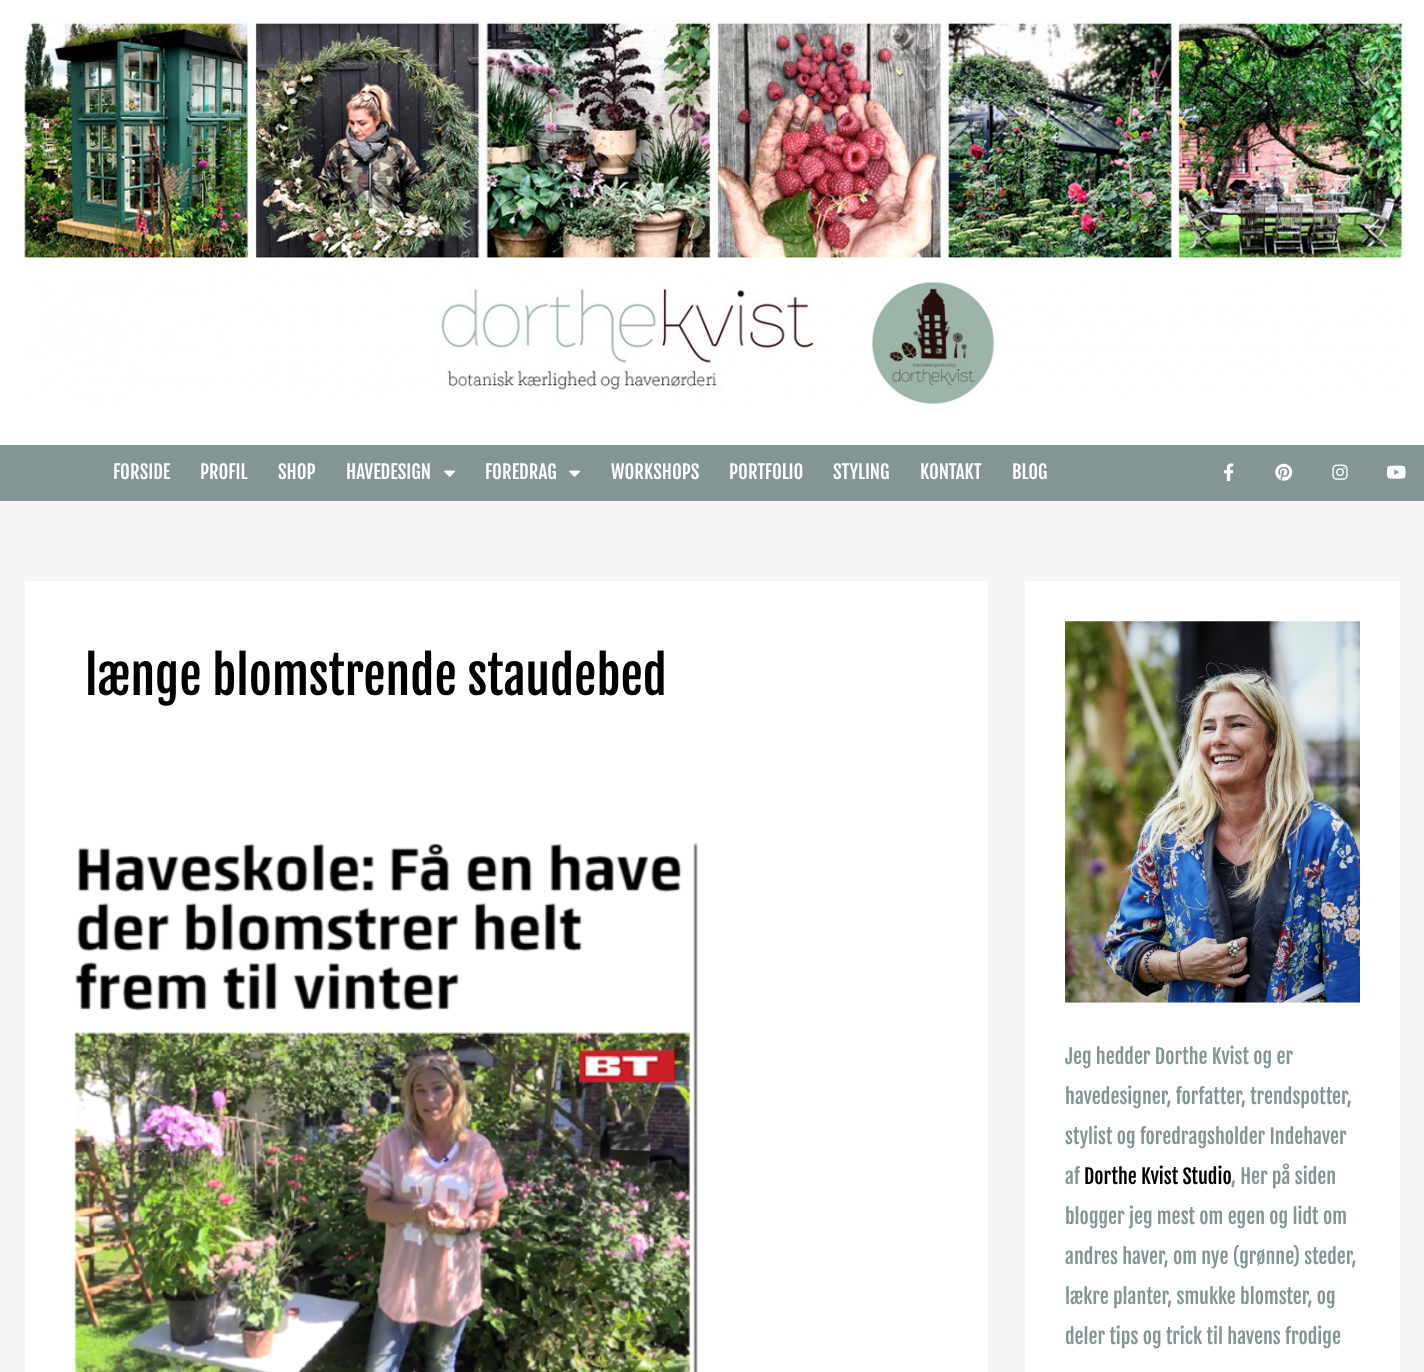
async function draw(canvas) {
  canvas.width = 1424;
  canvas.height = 1372;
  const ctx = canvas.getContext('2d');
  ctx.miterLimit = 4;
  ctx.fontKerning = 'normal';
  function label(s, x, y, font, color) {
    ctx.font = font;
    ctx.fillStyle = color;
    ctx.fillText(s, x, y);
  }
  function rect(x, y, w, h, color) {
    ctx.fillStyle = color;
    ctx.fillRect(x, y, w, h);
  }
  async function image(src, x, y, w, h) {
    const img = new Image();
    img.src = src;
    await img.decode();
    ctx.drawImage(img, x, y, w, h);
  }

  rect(0, 0, 1424, 1372, '#f5f5f5');
  rect(0, 0, 1424, 445, '#fff');
  await image('assets/img1.png', 23, 19, 1384, 386);
  rect(0, 445, 1424, 56, '#839595');
  label('FORSIDE', 113, 479, '18.75px Fjalla One', '#fff');
  label('PROFIL', 200, 479, '18.75px Fjalla One', '#fff');
  label('SHOP', 278, 479, '18.75px Fjalla One', '#fff');
  label('HAVEDESIGN', 346, 479, '18.75px Fjalla One', '#fff');
  await image('assets/img2.png', 444, 470, 11, 7);
  label('FOREDRAG', 485, 479, '18.75px Fjalla One', '#fff');
  await image('assets/img2.png', 569, 470, 11, 7);
  label('WORKSHOPS', 611, 479, '18.75px Fjalla One', '#fff');
  label('PORTFOLIO', 729, 479, '18.75px Fjalla One', '#fff');
  label('STYLING', 833, 479, '18.75px Fjalla One', '#fff');
  label('KONTAKT', 920, 479, '18.75px Fjalla One', '#fff');
  label('BLOG', 1012, 479, '18.75px Fjalla One', '#fff');
  await image('assets/img3.png', 1224, 463, 10, 18);
  await image('assets/img4.png', 1275, 463, 18, 18);
  await image('assets/img5.png', 1332, 464, 16, 16);
  await image('assets/img6.png', 1386, 465, 20, 14);
  rect(25, 581, 963, 791, '#fff');
  label('længe blomstrende staudebed', 85, 695, '50px Fjalla One', '#000');
  await image('assets/img7.png', 74, 842, 624, 530);
  rect(1025, 581, 375, 791, '#fff');
  await image('assets/img8.png', 1065, 621, 295, 382);
  label('Jeg hedder Dorthe Kvist og er', 1065, 1064, '20px Fjalla One', '#839595');
  label('havedesigner, forfatter, trendspotter,', 1065, 1104, '20px Fjalla One', '#839595');
  label('stylist og foredragsholder Indehaver', 1065, 1144, '20px Fjalla One', '#839595');
  label('af', 1065, 1184, '20px Fjalla One', '#839595');
  label('Dorthe Kvist Studio', 1084, 1184, '20px Fjalla One', '#000');
  label(', Her på siden', 1231, 1184, '20px Fjalla One', '#839595');
  label('blogger jeg mest om egen og lidt om', 1065, 1224, '20px Fjalla One', '#839595');
  label('andres haver, om nye (grønne) steder,', 1065, 1264, '20px Fjalla One', '#839595');
  label('lækre planter, smukke blomster, og', 1065, 1304, '20px Fjalla One', '#839595');
  label('deler tips og trick til havens frodige', 1065, 1344, '20px Fjalla One', '#839595');
}

draw(document.querySelector('canvas'));
